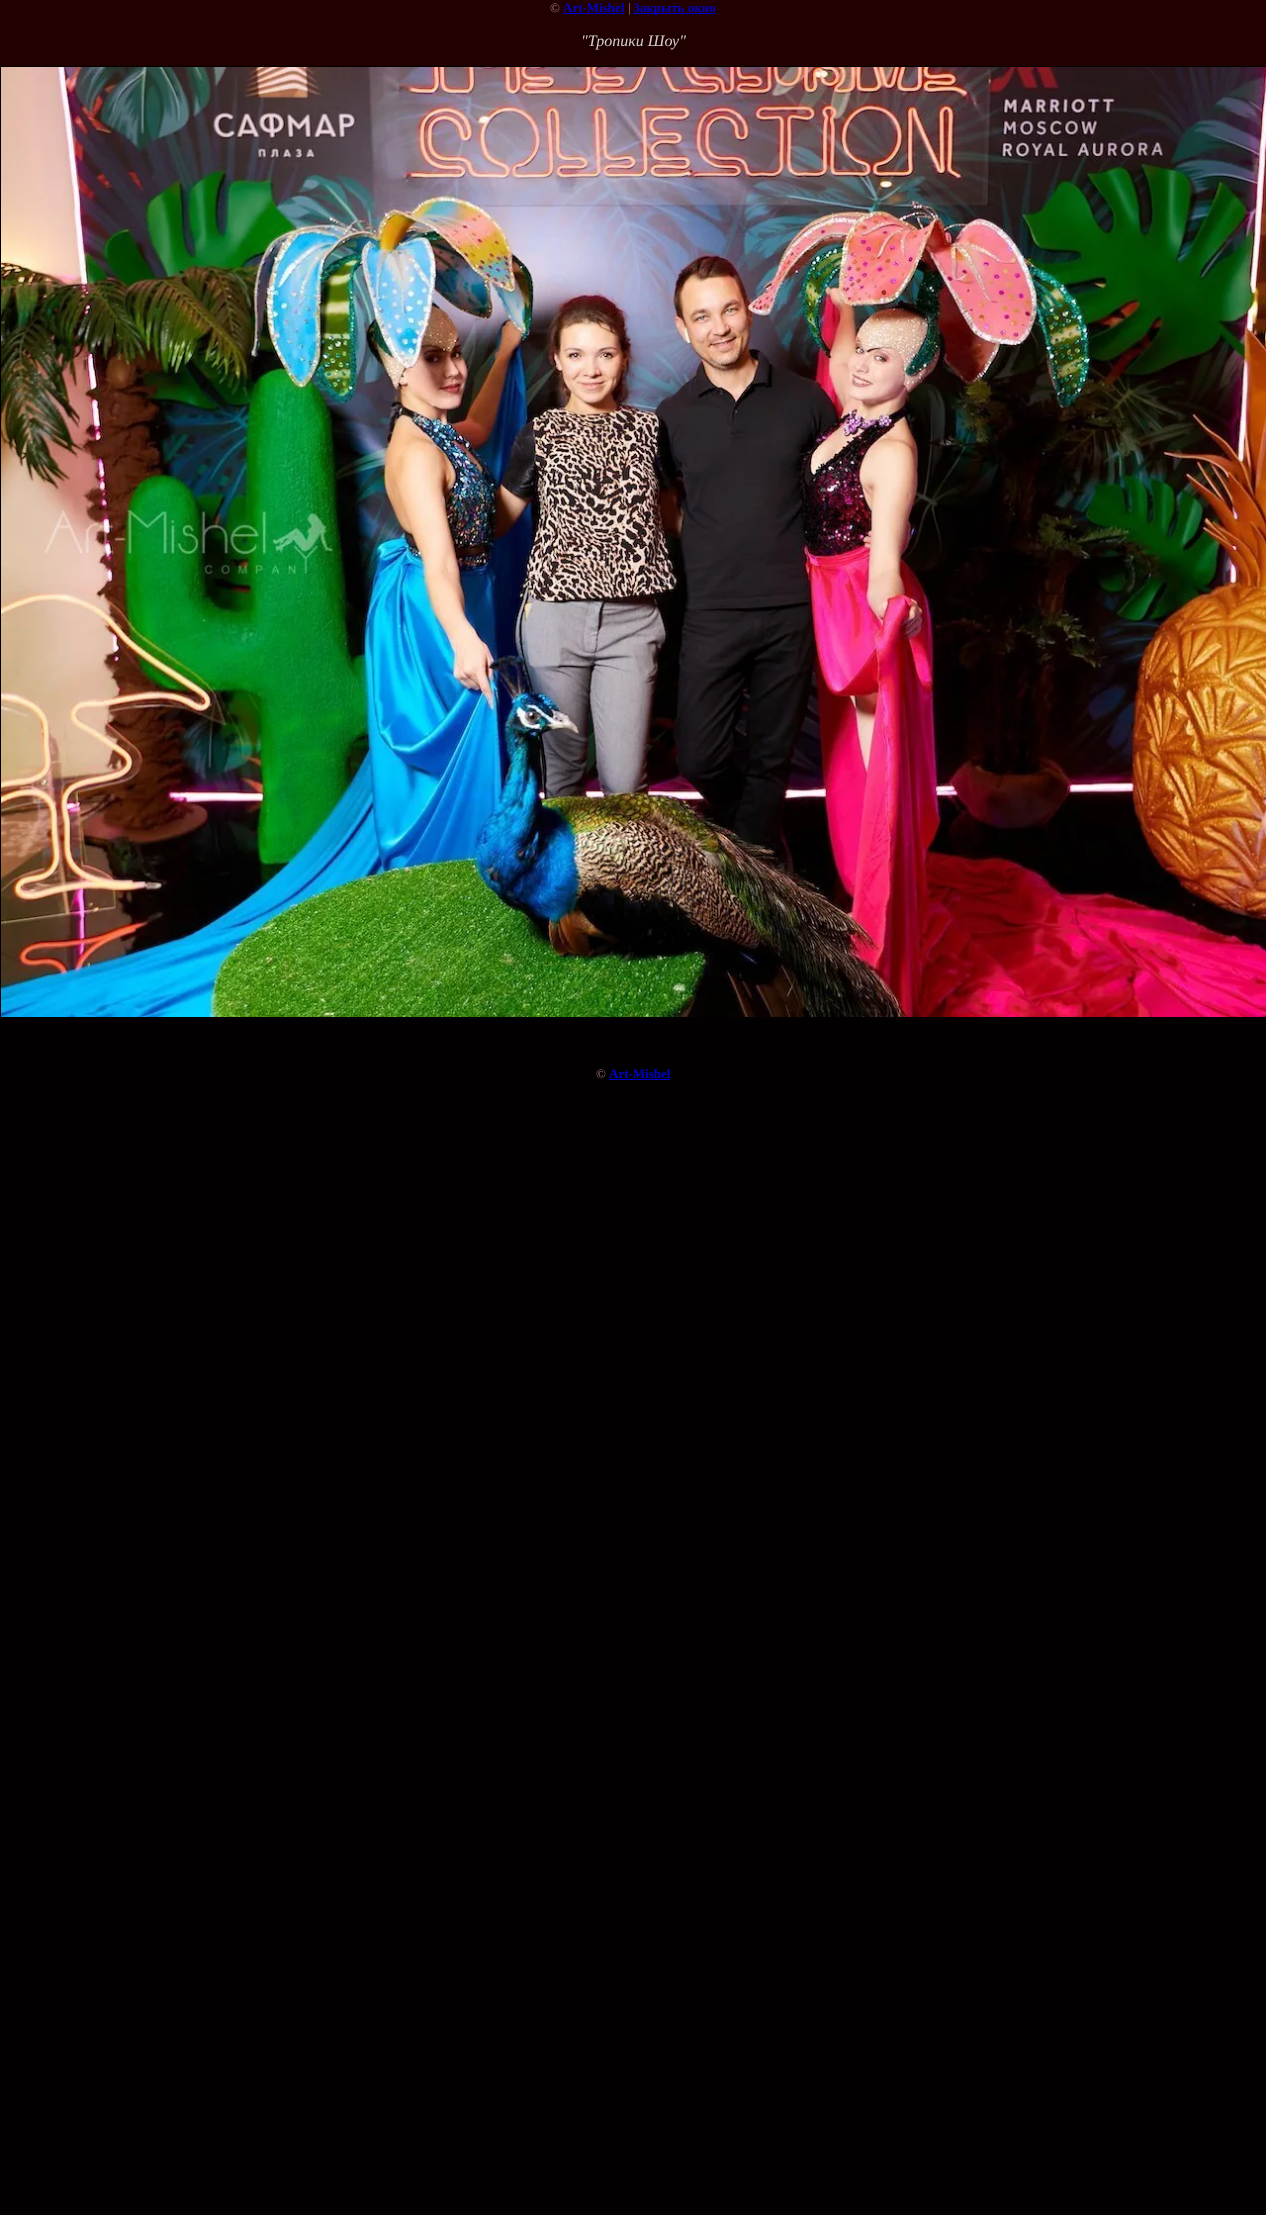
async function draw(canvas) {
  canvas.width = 1266;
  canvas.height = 2215;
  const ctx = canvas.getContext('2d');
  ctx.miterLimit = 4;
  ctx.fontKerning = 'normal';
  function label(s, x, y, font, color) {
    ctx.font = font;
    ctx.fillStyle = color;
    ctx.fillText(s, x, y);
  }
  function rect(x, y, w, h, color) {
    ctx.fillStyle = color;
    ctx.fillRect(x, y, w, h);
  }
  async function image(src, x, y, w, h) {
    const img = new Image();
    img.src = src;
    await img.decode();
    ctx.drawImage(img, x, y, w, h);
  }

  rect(0, 0, 1266, 2215, '#020000');
  await image('assets/img1.png', 0, 0, 1266, 66);
  label('©', 550, 12, '13px Liberation Serif', '#a8787b');
  label('Art-Mishel', 563, 12, 'bold 13px Liberation Serif', '#00c');
  rect(563, 13, 61, 1, '#00c');
  label('|', 628, 12, '13px Liberation Serif', '#a8787b');
  rect(633, 13, 83, 1, '#00c');
  label('Закрыть окно', 633, 12, 'bold 13px Liberation Serif', '#00c');
  label('"Тропики Шоу"', 581, 46, 'italic 16px Liberation Serif', '#d1cfcf');
  await image('assets/img2.png', 1, 67, 1265, 950);
  label('©', 596, 1078, '13px Liberation Serif', '#a8787b');
  label('Art-Mishel', 609, 1078, 'bold 13px Liberation Serif', '#00c');
  rect(609, 1079, 61, 1, '#00c');
}

draw(document.querySelector('canvas'));
